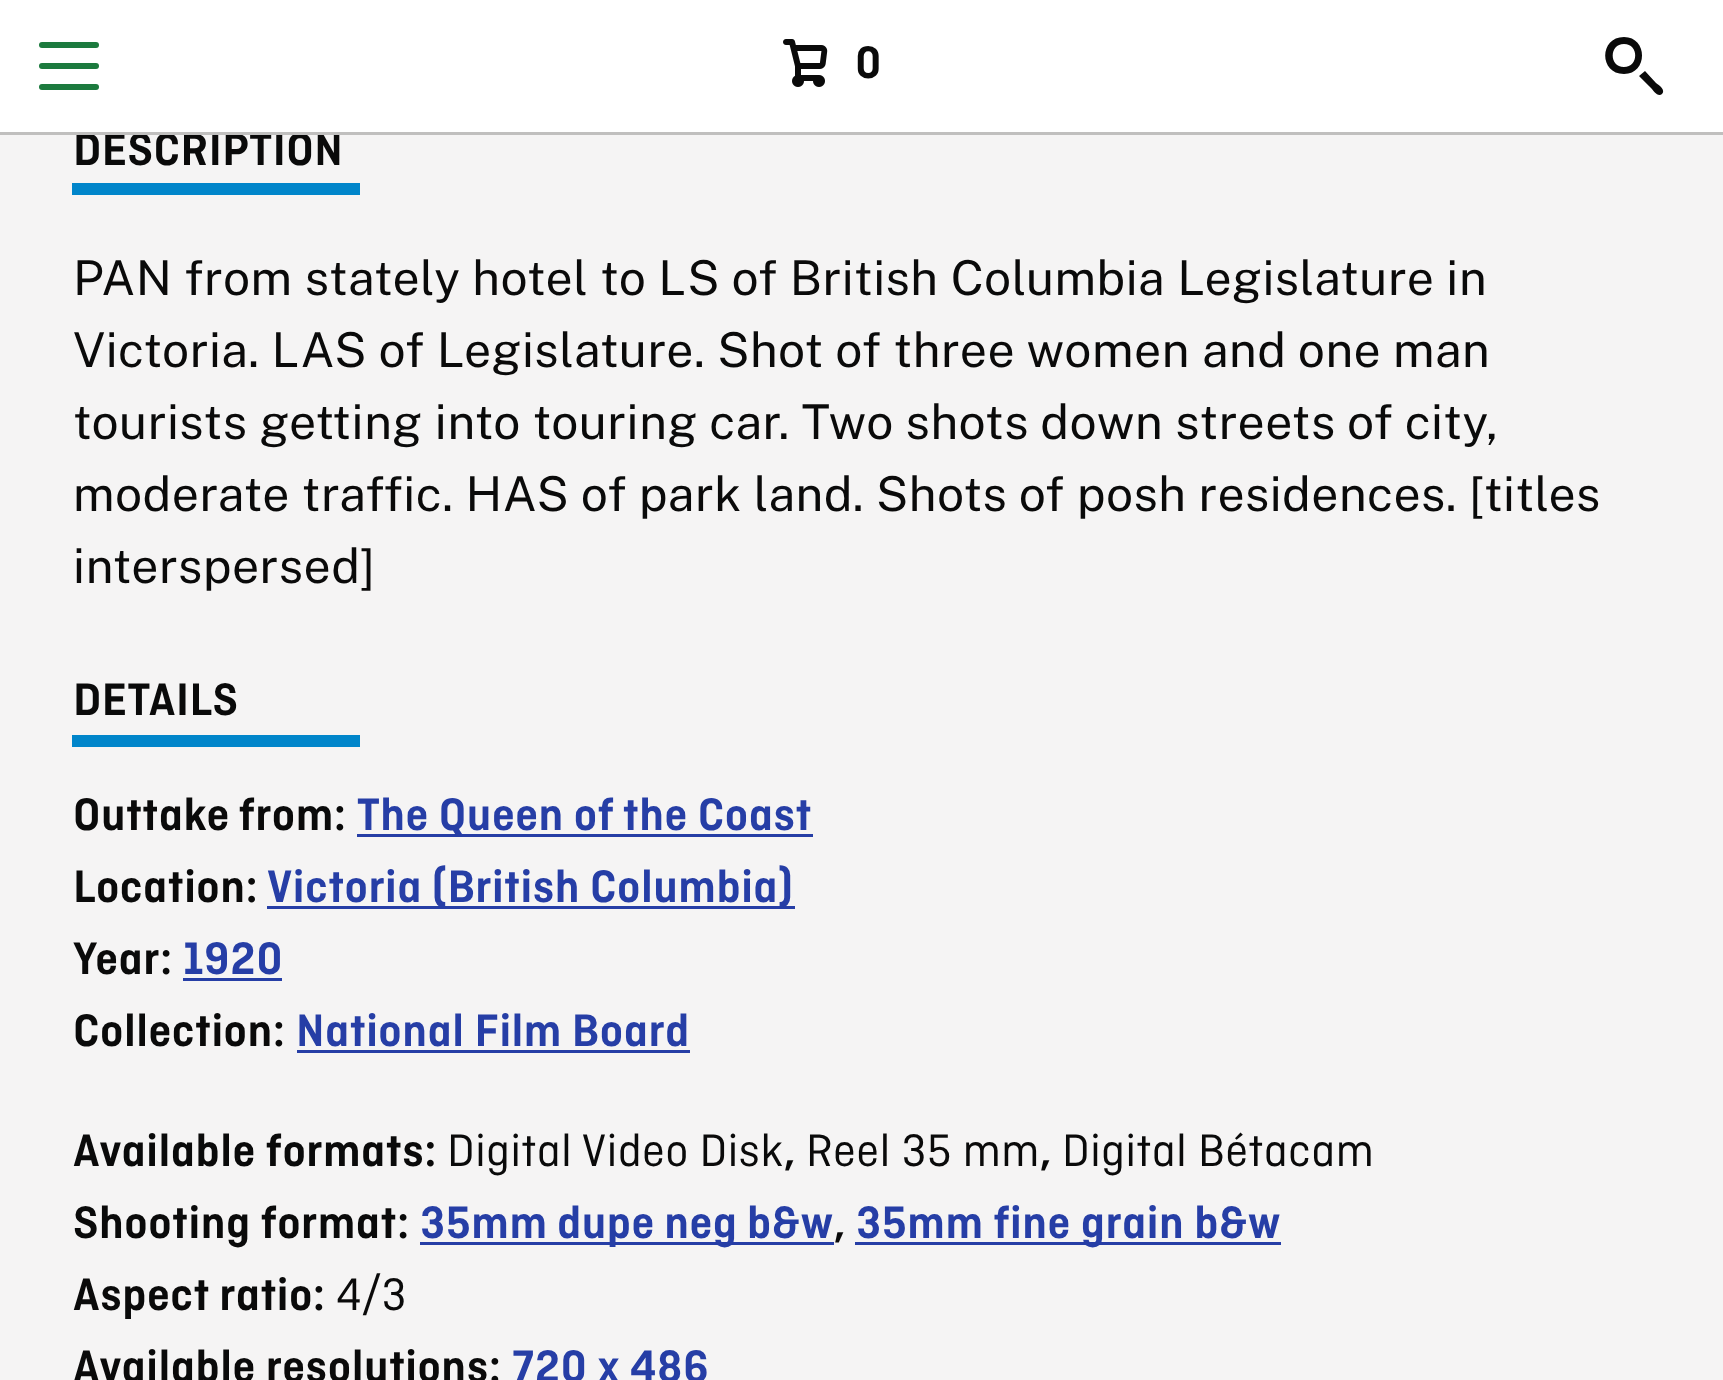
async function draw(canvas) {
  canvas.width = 1723;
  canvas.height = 1380;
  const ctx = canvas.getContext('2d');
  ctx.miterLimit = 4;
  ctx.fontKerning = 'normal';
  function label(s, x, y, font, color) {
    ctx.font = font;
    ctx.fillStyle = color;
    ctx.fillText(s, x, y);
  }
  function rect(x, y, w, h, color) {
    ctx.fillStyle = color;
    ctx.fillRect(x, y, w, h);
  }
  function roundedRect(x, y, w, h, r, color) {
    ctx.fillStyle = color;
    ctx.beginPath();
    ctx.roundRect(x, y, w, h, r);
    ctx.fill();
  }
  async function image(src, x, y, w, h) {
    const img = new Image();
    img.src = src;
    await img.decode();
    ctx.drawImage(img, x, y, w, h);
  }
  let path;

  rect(0, 0, 1723, 1380, '#f5f4f4');
  rect(0, 0, 1723, 132, '#fff');
  ctx.letterSpacing = '0.48px';
  label('DESCRIPTION', 73, 165, '600 48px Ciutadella', '#0a0a0a');
  rect(0, 132, 1723, 3, '#c0bfbe');
  roundedRect(39, 63, 60, 6, 3, '#1c7a3e');
  roundedRect(39, 42, 60, 6, 3, '#1c7a3e');
  roundedRect(39, 84, 60, 6, 3, '#1c7a3e');
  await image('assets/img1.png', 783, 39, 45, 48);
  ctx.letterSpacing = '0px';
  label('0', 855, 78, '600 48px Ciutadella', '#0a0a0a');
  path = new Path2D('M1624 74C1599 74 1599 37 1624 37C1648 37 1648 74 1624 74ZM1624 67C1639 67 1639 44 1624 44C1609 44 1609 67 1624 67ZM1645 71L1656 83C1659 85 1666 90 1662 94C1658 98 1653 90 1651 88L1639 76Z');
  ctx.fill(path);
  rect(72, 183, 288, 12, '#0085ca');
  ctx.letterSpacing = '0.48px';
  label('PAN from stately hotel to LS of British Columbia Legislature in', 73, 295, '48px Public Sans', '#0a0a0a');
  label('Victoria. LAS of Legislature. Shot of three women and one man', 73, 367, '48px Public Sans', '#0a0a0a');
  label('tourists getting into touring car. Two shots down streets of city,', 73, 439, '48px Public Sans', '#0a0a0a');
  label('moderate traffic. HAS of park land. Shots of posh residences. [titles', 73, 511, '48px Public Sans', '#0a0a0a');
  label('interspersed]', 73, 583, '48px Public Sans', '#0a0a0a');
  label('DETAILS', 73, 715, '600 48px Ciutadella', '#0a0a0a');
  rect(72, 735, 288, 12, '#0085ca');
  ctx.wordSpacing = '-1px';
  label('Outtake from:', 73, 830, '600 48px Ciutadella', '#0a0a0a');
  rect(357, 834, 456, 3, '#263ea6');
  ctx.wordSpacing = '0px';
  label('The Queen of the Coast', 357, 830, '600 48px Ciutadella', '#263ea6');
  label('Location:', 73, 902, '600 48px Ciutadella', '#0a0a0a');
  rect(267, 906, 528, 3, '#263ea6');
  label('Victoria (British Columbia)', 267, 902, '600 48px Ciutadella', '#263ea6');
  label('Year:', 73, 974, '600 48px Ciutadella', '#0a0a0a');
  label('1920', 183, 974, '600 48px Ciutadella', '#263ea6');
  rect(183, 978, 99, 3, '#263ea6');
  label('Collection:', 73, 1046, '600 48px Ciutadella', '#0a0a0a');
  label('National Film Board', 296, 1046, '600 48px Ciutadella', '#263ea6');
  rect(297, 1050, 393, 3, '#263ea6');
  label('Available formats:', 73, 1166, '600 48px Ciutadella', '#0a0a0a');
  label('Digital Video Disk', 447, 1166, '48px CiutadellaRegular', '#0a0a0a');
  label(',', 784, 1166, '600 48px Ciutadella', '#0a0a0a');
  label('Reel 35 mm', 806, 1166, '48px CiutadellaRegular', '#0a0a0a');
  label(',', 1040, 1166, '600 48px Ciutadella', '#0a0a0a');
  label('Digital Bétacam', 1062, 1166, '48px CiutadellaRegular', '#0a0a0a');
  label('Shooting format:', 73, 1238, '600 48px Ciutadella', '#0a0a0a');
  rect(420, 1242, 414, 3, '#263ea6');
  ctx.wordSpacing = '-0.5px';
  label('35mm dupe neg b&w', 420, 1238, '600 48px Ciutadella', '#263ea6');
  ctx.wordSpacing = '0px';
  label(',', 834, 1238, '600 48px Ciutadella', '#0a0a0a');
  rect(855, 1242, 426, 3, '#263ea6');
  label('35mm fine grain b&w', 856, 1238, '600 48px Ciutadella', '#263ea6');
  label('Aspect ratio:', 73, 1310, '600 48px Ciutadella', '#0a0a0a');
  label('4/3', 336, 1310, '48px CiutadellaRegular', '#0a0a0a');
  label('Available resolutions:', 73, 1382, '600 48px Ciutadella', '#0a0a0a');
  label('720 x 486', 512, 1382, '600 48px Ciutadella', '#263ea6');
}

draw(document.querySelector('canvas'));
